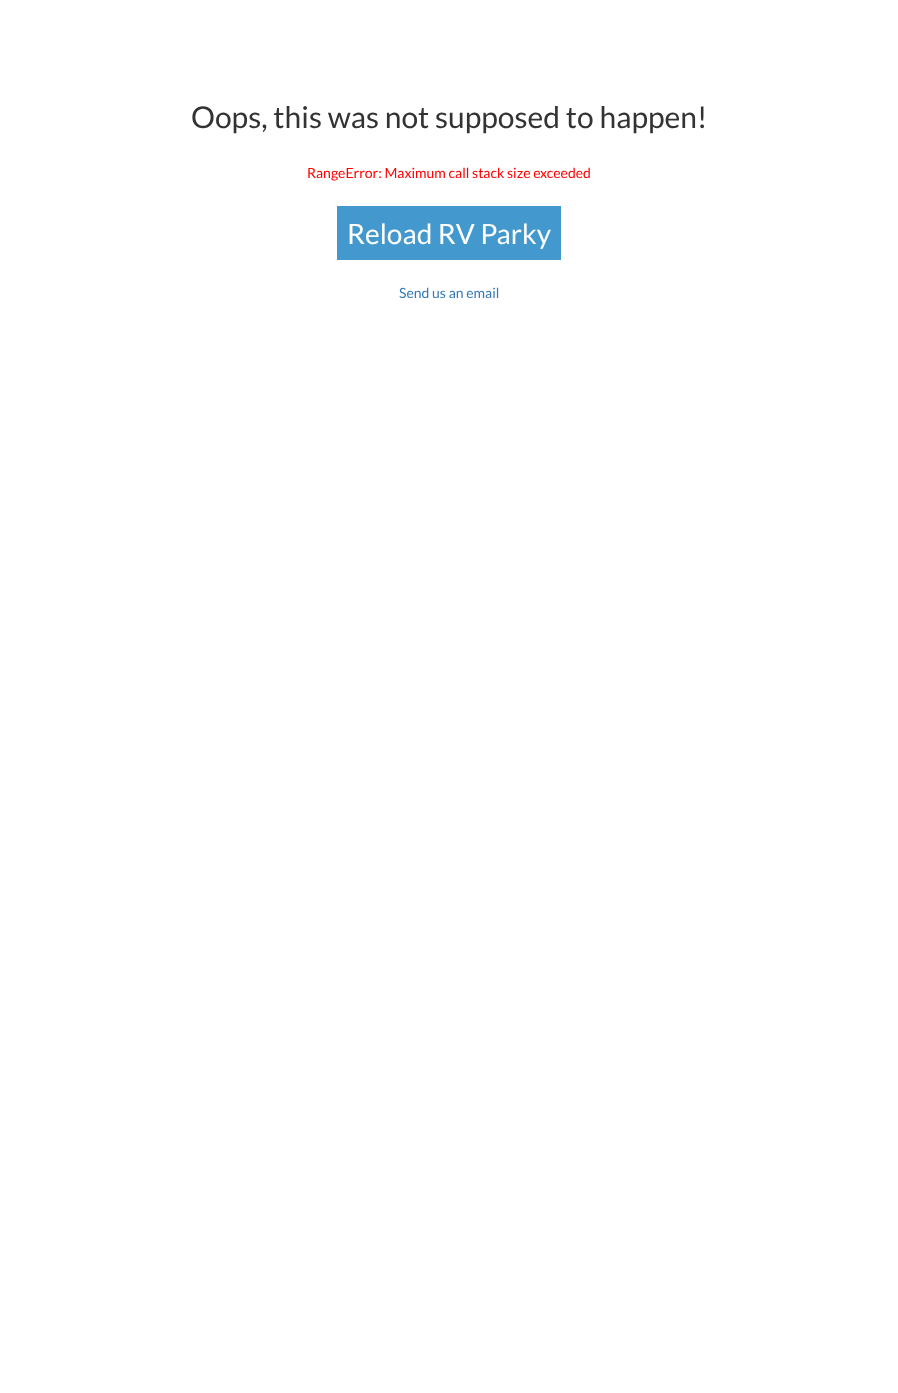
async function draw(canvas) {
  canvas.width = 898;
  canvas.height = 1393;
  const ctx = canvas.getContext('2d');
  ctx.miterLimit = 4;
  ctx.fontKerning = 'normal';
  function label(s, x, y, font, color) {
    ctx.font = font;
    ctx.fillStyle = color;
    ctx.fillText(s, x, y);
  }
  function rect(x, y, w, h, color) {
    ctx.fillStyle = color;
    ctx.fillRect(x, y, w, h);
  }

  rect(0, 0, 898, 1393, '#fff');
  label('Oops, this was not supposed to happen!', 191, 128, '30px Lato', '#333');
  label('RangeError: Maximum call stack size exceeded', 307, 178, '14px Lato', '#f00');
  rect(337, 206, 224, 54, '#4399ce');
  label('Reload RV Parky', 347, 244, '28px Lato', '#fff');
  label('Send us an email', 399, 298, '14px Lato', '#337ab7');
}

draw(document.querySelector('canvas'));
